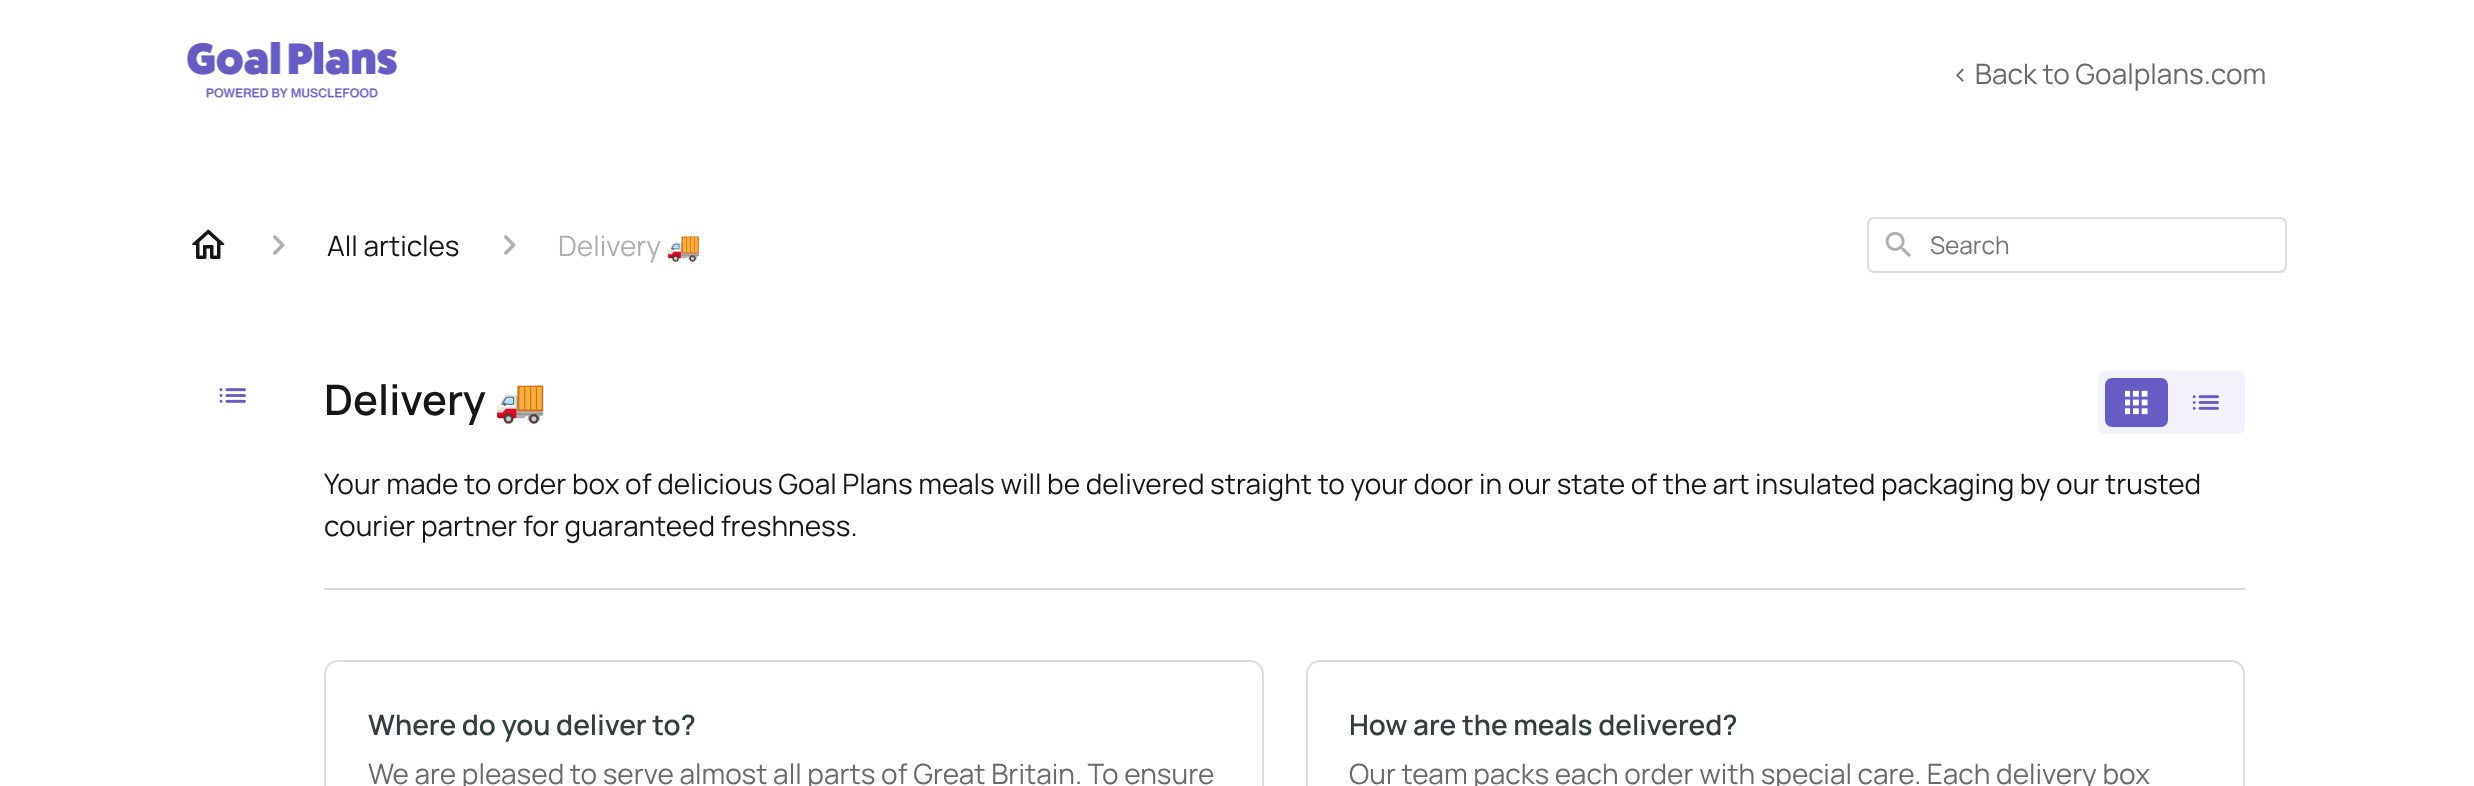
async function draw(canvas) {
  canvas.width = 2474;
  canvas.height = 786;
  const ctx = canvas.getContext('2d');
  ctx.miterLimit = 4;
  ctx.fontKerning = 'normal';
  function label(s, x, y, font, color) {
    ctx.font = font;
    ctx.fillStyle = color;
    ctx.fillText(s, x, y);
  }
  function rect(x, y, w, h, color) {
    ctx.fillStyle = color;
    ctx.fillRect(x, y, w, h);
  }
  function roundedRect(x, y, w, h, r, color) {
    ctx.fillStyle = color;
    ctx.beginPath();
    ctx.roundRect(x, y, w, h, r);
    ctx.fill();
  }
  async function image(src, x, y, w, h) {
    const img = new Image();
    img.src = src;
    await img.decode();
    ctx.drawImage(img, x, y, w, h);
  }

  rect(0, 0, 2474, 786, '#fff');
  await image('assets/img1.png', 187, 42, 211, 56);
  label('< Back to Goalplans.com', 1952, 84, '28px Manrope', '#6a6a6a');
  await image('assets/img2.png', 192, 229, 33, 30);
  await image('assets/img3.png', 273, 235, 12, 20);
  label('All articles', 327, 256, '28px Manrope', '#161616');
  await image('assets/img3.png', 504, 235, 12, 20);
  label('Delivery', 558, 256, '28px Manrope', '#afafaf');
  label('🚚', 666, 256, '28px Noto Color Emoji', '#afafaf');
  ctx.beginPath();
  ctx.roundRect(1868, 218, 418, 54, 6);
  ctx.strokeStyle = '#ddd';
  ctx.lineWidth = 2;
  ctx.stroke();
  await image('assets/img4.png', 1885, 231, 26, 26);
  label('Search', 1930, 254, '24.5px Manrope', '#757575');
  await image('assets/img5.png', 219, 388, 27, 15);
  rect(324, 588, 1921, 2, '#ddd');
  label('Delivery', 324, 415, '600 42px Manrope', '#161616');
  label('🚚', 494, 415, 'bold 42px Noto Color Emoji', '#161616');
  roundedRect(2098, 371, 147, 63, 7, '#f3f2fa');
  roundedRect(2105, 378, 63, 49, 7, '#665cc4');
  await image('assets/img6.png', 2125, 390, 94, 25);
  label('Your made to order box of delicious Goal Plans meals will be delivered straight to your door in our state of the art insulated packaging by our trusted', 324, 494, '28px Manrope', '#161616');
  label('courier partner for guaranteed freshness.', 324, 536, '28px Manrope', '#161616');
  ctx.beginPath();
  ctx.roundRect(325, 661, 938, 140, 13);
  ctx.stroke();
  label('Where do you deliver to?', 368, 735, '600 28px Manrope', '#353e3f');
  label('We are pleased to serve almost all parts of Great Britain. To ensure', 368, 784, '28px Manrope', '#6a6a6a');
  ctx.beginPath();
  ctx.roundRect(1307, 661, 937, 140, 13);
  ctx.stroke();
  label('How are the meals delivered?', 1349, 735, '600 28px Manrope', '#353e3f');
  label('Our team packs each order with special care. Each delivery box', 1349, 784, '28px Manrope', '#6a6a6a');
}

draw(document.querySelector('canvas'));
